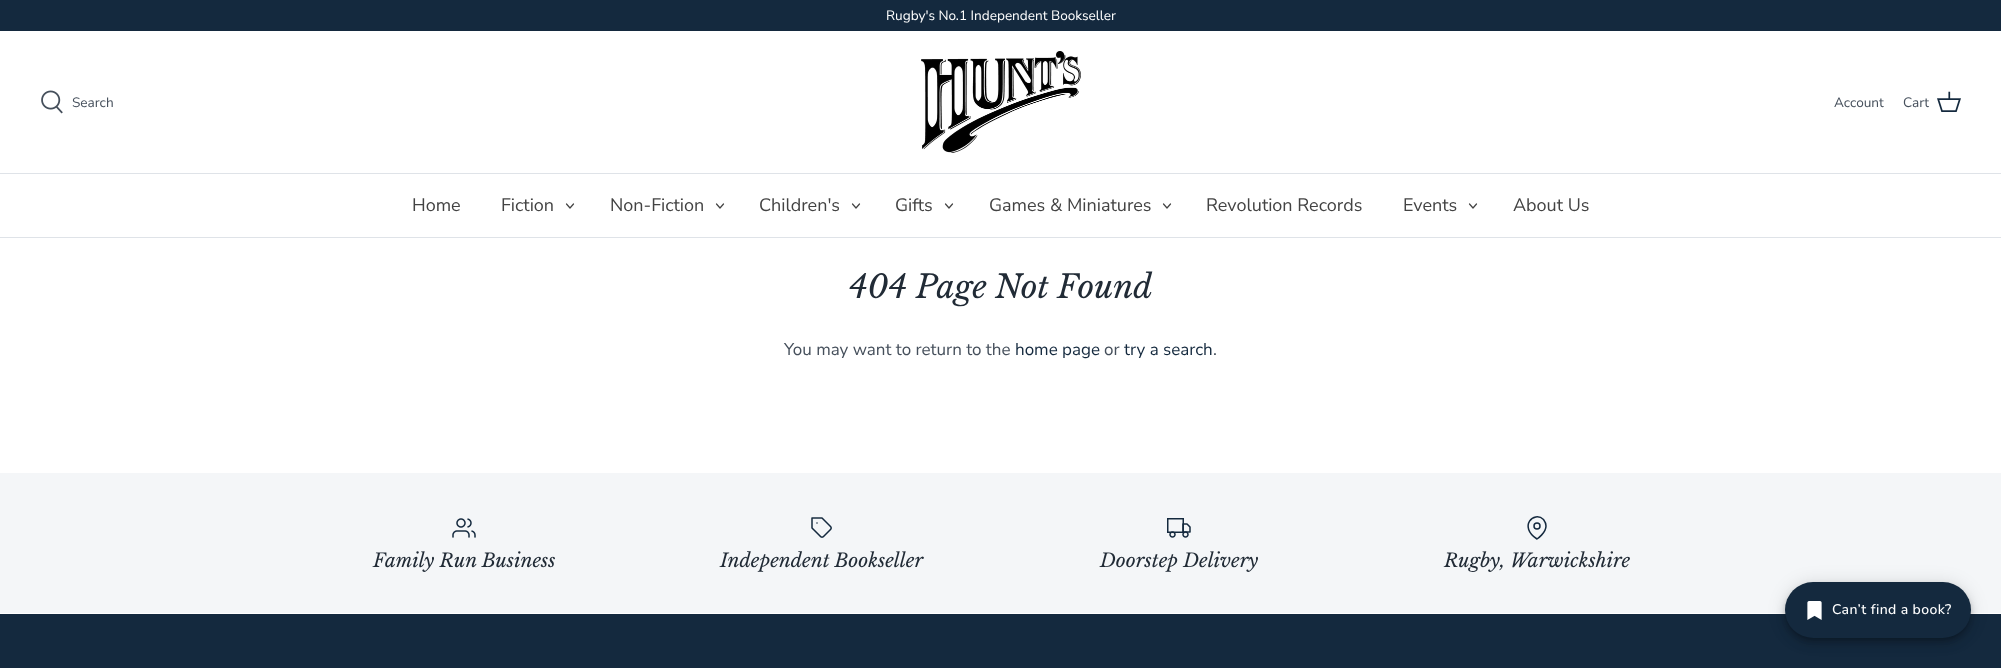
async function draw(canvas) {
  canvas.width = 2001;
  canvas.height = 668;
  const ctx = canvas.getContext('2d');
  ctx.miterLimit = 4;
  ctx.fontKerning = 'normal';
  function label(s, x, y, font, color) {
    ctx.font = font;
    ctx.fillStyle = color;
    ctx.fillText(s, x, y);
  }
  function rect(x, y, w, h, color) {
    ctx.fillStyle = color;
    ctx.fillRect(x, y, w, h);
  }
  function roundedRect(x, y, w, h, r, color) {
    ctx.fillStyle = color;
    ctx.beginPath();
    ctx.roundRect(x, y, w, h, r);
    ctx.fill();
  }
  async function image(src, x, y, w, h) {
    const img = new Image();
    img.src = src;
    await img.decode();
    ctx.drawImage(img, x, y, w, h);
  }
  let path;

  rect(0, 0, 2001, 668, '#fff');
  rect(0, 0, 2001, 31, '#14293e');
  label('Rugby\'s No.1 Independent Bookseller', 886, 20, '13.6px Nunito Sans', '#fff');
  rect(0, 173, 2001, 1, '#dfe3e8');
  await image('assets/img1.png', 41, 90, 22, 24);
  label('Search', 72, 107, '13.6px Nunito Sans', '#454f5b');
  await image('assets/img2.png', 921, 51, 160, 102);
  label('Account', 1834, 107, '13.6px Nunito Sans', '#454f5b');
  label('Cart', 1903, 107, '13.6px Nunito Sans', '#454f5b');
  await image('assets/img3.png', 1937, 91, 24, 21);
  rect(0, 237, 2001, 1, '#dfe3e8');
  label('Home', 412, 211, '18px Nunito Sans', '#434343');
  label('Fiction', 501, 211, '18px Nunito Sans', '#434343');
  path = new Path2D('M566.5 204L570 208L573.5 204');
  ctx.strokeStyle = '#434343';
  ctx.lineWidth = 1.2;
  ctx.lineCap = 'round';
  ctx.lineJoin = 'round';
  ctx.stroke(path);
  label('Non-Fiction', 610, 211, '18px Nunito Sans', '#434343');
  path = new Path2D('M716.5 204L720 208L723.5 204');
  ctx.stroke(path);
  label('Children\'s', 759, 211, '18px Nunito Sans', '#434343');
  path = new Path2D('M852.5 204L856 208L859.5 204');
  ctx.stroke(path);
  label('Gifts', 895, 211, '18px Nunito Sans', '#434343');
  path = new Path2D('M945.5 204L949 208L952.5 204');
  ctx.stroke(path);
  label('Games & Miniatures', 989, 211, '18px Nunito Sans', '#434343');
  path = new Path2D('M1163.5 204L1167 208L1170.5 204');
  ctx.stroke(path);
  label('Revolution Records', 1206, 211, '18px Nunito Sans', '#434343');
  label('Events', 1403, 211, '18px Nunito Sans', '#434343');
  path = new Path2D('M1469.5 204L1473 208L1476.5 204');
  ctx.stroke(path);
  label('About Us', 1513, 211, '18px Nunito Sans', '#434343');
  label('404 Page Not Found', 849, 298, 'italic 32px Libre Baskerville', '#212b36');
  label('You may want to return to the', 784, 355, '17px Nunito Sans', '#454f5b');
  label('home page', 1015, 355, '17px Nunito Sans', '#14293e');
  label('or', 1104, 355, '17px Nunito Sans', '#454f5b');
  label('try a search', 1124, 355, '17px Nunito Sans', '#14293e');
  label('.', 1213, 355, '17px Nunito Sans', '#454f5b');
  rect(0, 614, 2001, 54, '#14293e');
  rect(0, 473, 2001, 140, '#f4f6f8');
  await image('assets/img4.png', 452, 518, 24, 20);
  label('Family Run Business', 373, 567, 'italic 19px Libre Baskerville', '#212b36');
  await image('assets/img5.png', 811, 517, 21, 21);
  label('Independent Bookseller', 720, 567, 'italic 19px Libre Baskerville', '#212b36');
  await image('assets/img6.png', 1167, 518, 24, 20);
  label('Doorstep Delivery', 1100, 567, 'italic 19px Libre Baskerville', '#212b36');
  path = new Path2D('M1546 526C1546 533 1537 539 1537 539C1518 526.5 1534 510.5 1543.5 519.5C1545 521.5 1546 523.5 1546 526Z');
  ctx.strokeStyle = '#14293e';
  ctx.lineWidth = 1.5;
  ctx.stroke(path);
  ctx.beginPath();
  ctx.arc(1537, 526, 3, 0, 2 * Math.PI);
  ctx.stroke();
  label('Rugby, Warwickshire', 1444, 567, 'italic 19px Libre Baskerville', '#212b36');
  ctx.fillStyle = '#0000001f';
  ctx.filter = 'blur(9px)';
  ctx.beginPath();
  ctx.roundRect(1785, 583, 186, 56, 28);
  ctx.fill();
  ctx.filter = 'none';
  ctx.fillStyle = '#00000024';
  ctx.filter = 'blur(5px)';
  ctx.beginPath();
  ctx.roundRect(1785, 588, 186, 56, 28);
  ctx.fill();
  ctx.filter = 'none';
  ctx.fillStyle = '#00000033';
  ctx.filter = 'blur(2.5px)';
  ctx.beginPath();
  ctx.roundRect(1786, 586, 184, 54, 27);
  ctx.fill();
  ctx.filter = 'none';
  roundedRect(1785, 582, 186, 56, 28, '#14293e');
  await image('assets/img7.png', 1807, 601, 15, 19);
  ctx.letterSpacing = '0.4px';
  label('Can’t find a book?', 1832, 614, '500 14px Nunito Sans', '#fff');
}

draw(document.querySelector('canvas'));
